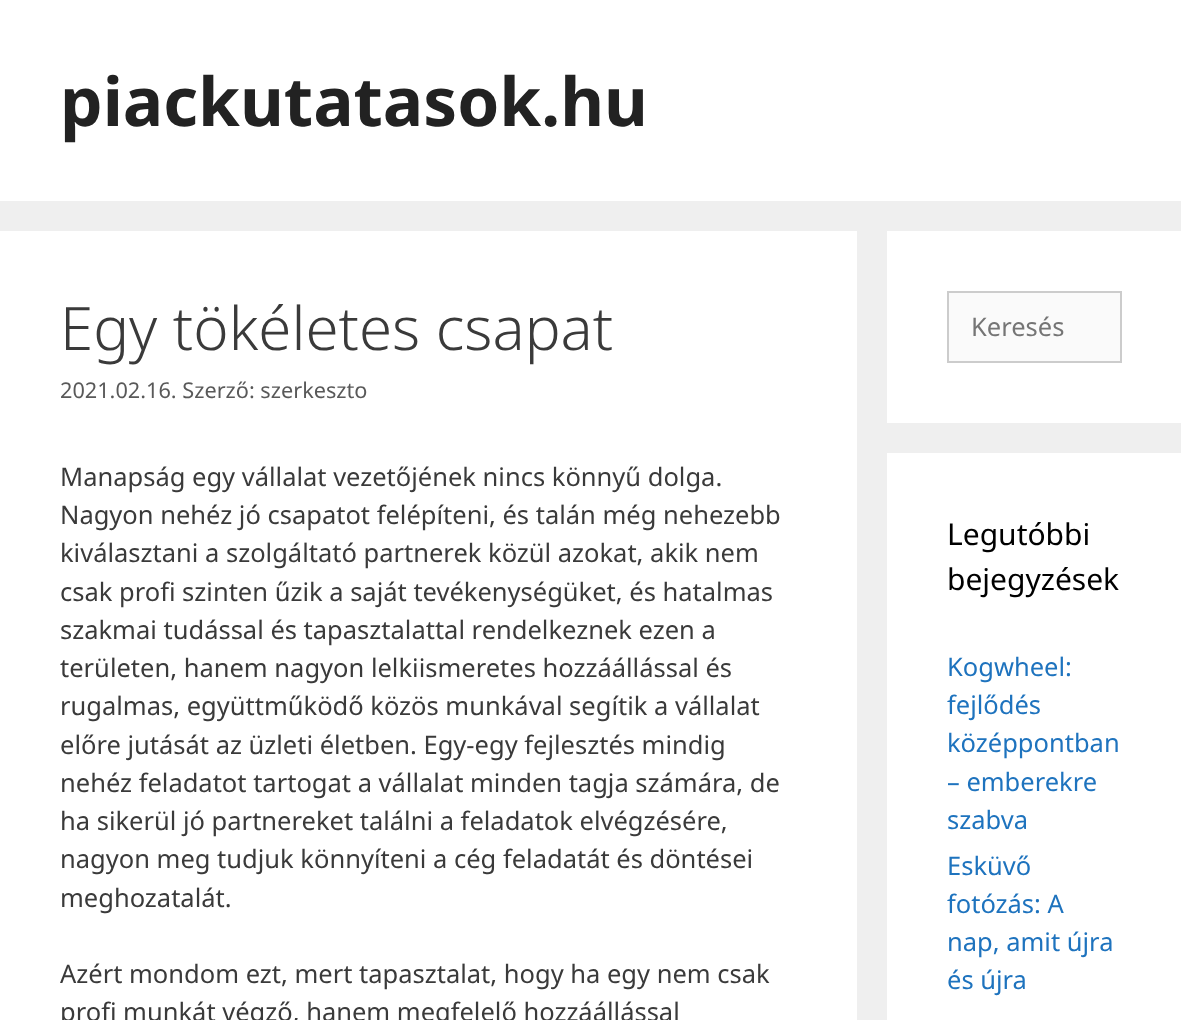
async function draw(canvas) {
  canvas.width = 1181;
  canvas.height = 1020;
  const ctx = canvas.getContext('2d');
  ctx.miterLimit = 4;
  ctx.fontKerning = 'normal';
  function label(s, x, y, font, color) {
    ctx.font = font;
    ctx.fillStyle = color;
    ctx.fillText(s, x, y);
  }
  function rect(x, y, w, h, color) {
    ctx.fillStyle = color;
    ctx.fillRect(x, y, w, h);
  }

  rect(0, 0, 1181, 1020, '#efefef');
  rect(0, 0, 1181, 201, '#fff');
  label('piackutatasok.hu', 60, 126, 'bold 67.5px Noto Sans', '#222');
  rect(0, 231, 857, 789, '#fff');
  label('Egy tökéletes csapat', 60, 350, '300 60px Noto Sans', '#3a3a3a');
  label('2021.02.16. Szerző: szerkeszto', 60, 398, '21.7px Noto Sans', '#595959');
  label('Manapság egy vállalat vezetőjének nincs könnyű dolga.', 60, 486, '25.5px Noto Sans', '#3a3a3a');
  label('Nagyon nehéz jó csapatot felépíteni, és talán még nehezebb', 60, 524, '25.5px Noto Sans', '#3a3a3a');
  label('kiválasztani a szolgáltató partnerek közül azokat, akik nem', 60, 562, '25.5px Noto Sans', '#3a3a3a');
  label('csak profi szinten űzik a saját tevékenységüket, és hatalmas', 60, 601, '25.5px Noto Sans', '#3a3a3a');
  label('szakmai tudással és tapasztalattal rendelkeznek ezen a', 60, 639, '25.5px Noto Sans', '#3a3a3a');
  label('területen, hanem nagyon lelkiismeretes hozzáállással és', 60, 677, '25.5px Noto Sans', '#3a3a3a');
  label('rugalmas, együttműködő közös munkával segítik a vállalat', 60, 715, '25.5px Noto Sans', '#3a3a3a');
  label('előre jutását az üzleti életben. Egy-egy fejlesztés mindig', 60, 754, '25.5px Noto Sans', '#3a3a3a');
  label('nehéz feladatot tartogat a vállalat minden tagja számára, de', 60, 792, '25.5px Noto Sans', '#3a3a3a');
  label('ha sikerül jó partnereket találni a feladatok elvégzésére,', 60, 830, '25.5px Noto Sans', '#3a3a3a');
  label('nagyon meg tudjuk könnyíteni a cég feladatát és döntései', 60, 868, '25.5px Noto Sans', '#3a3a3a');
  label('meghozatalát.', 60, 907, '25.5px Noto Sans', '#3a3a3a');
  label('Azért mondom ezt, mert tapasztalat, hogy ha egy nem csak', 60, 983, '25.5px Noto Sans', '#3a3a3a');
  label('profi munkát végző, hanem megfelelő hozzáállással', 60, 1021, '25.5px Noto Sans', '#3a3a3a');
  rect(887, 231, 294, 192, '#fff');
  ctx.fillStyle = '#fafafa';
  ctx.beginPath();
  ctx.rect(948, 292, 173, 70);
  ctx.fill();
  ctx.strokeStyle = '#ccc';
  ctx.lineWidth = 2;
  ctx.stroke();
  label('Keresés', 971, 336, '25.5px Noto Sans', '#757575');
  rect(887, 453, 294, 567, '#fff');
  label('Legutóbbi', 947, 545, '30px Noto Sans', '#000');
  label('bejegyzések', 947, 590, '30px Noto Sans', '#000');
  label('Kogwheel:', 947, 676, '25.5px Noto Sans', '#1e73be');
  label('fejlődés', 947, 714, '25.5px Noto Sans', '#1e73be');
  label('középpontban', 947, 752, '25.5px Noto Sans', '#1e73be');
  label('– emberekre', 947, 791, '25.5px Noto Sans', '#1e73be');
  label('szabva', 947, 829, '25.5px Noto Sans', '#1e73be');
  label('Esküvő', 947, 875, '25.5px Noto Sans', '#1e73be');
  label('fotózás: A', 947, 913, '25.5px Noto Sans', '#1e73be');
  label('nap, amit újra', 947, 951, '25.5px Noto Sans', '#1e73be');
  label('és újra', 947, 989, '25.5px Noto Sans', '#1e73be');
}

draw(document.querySelector('canvas'));
